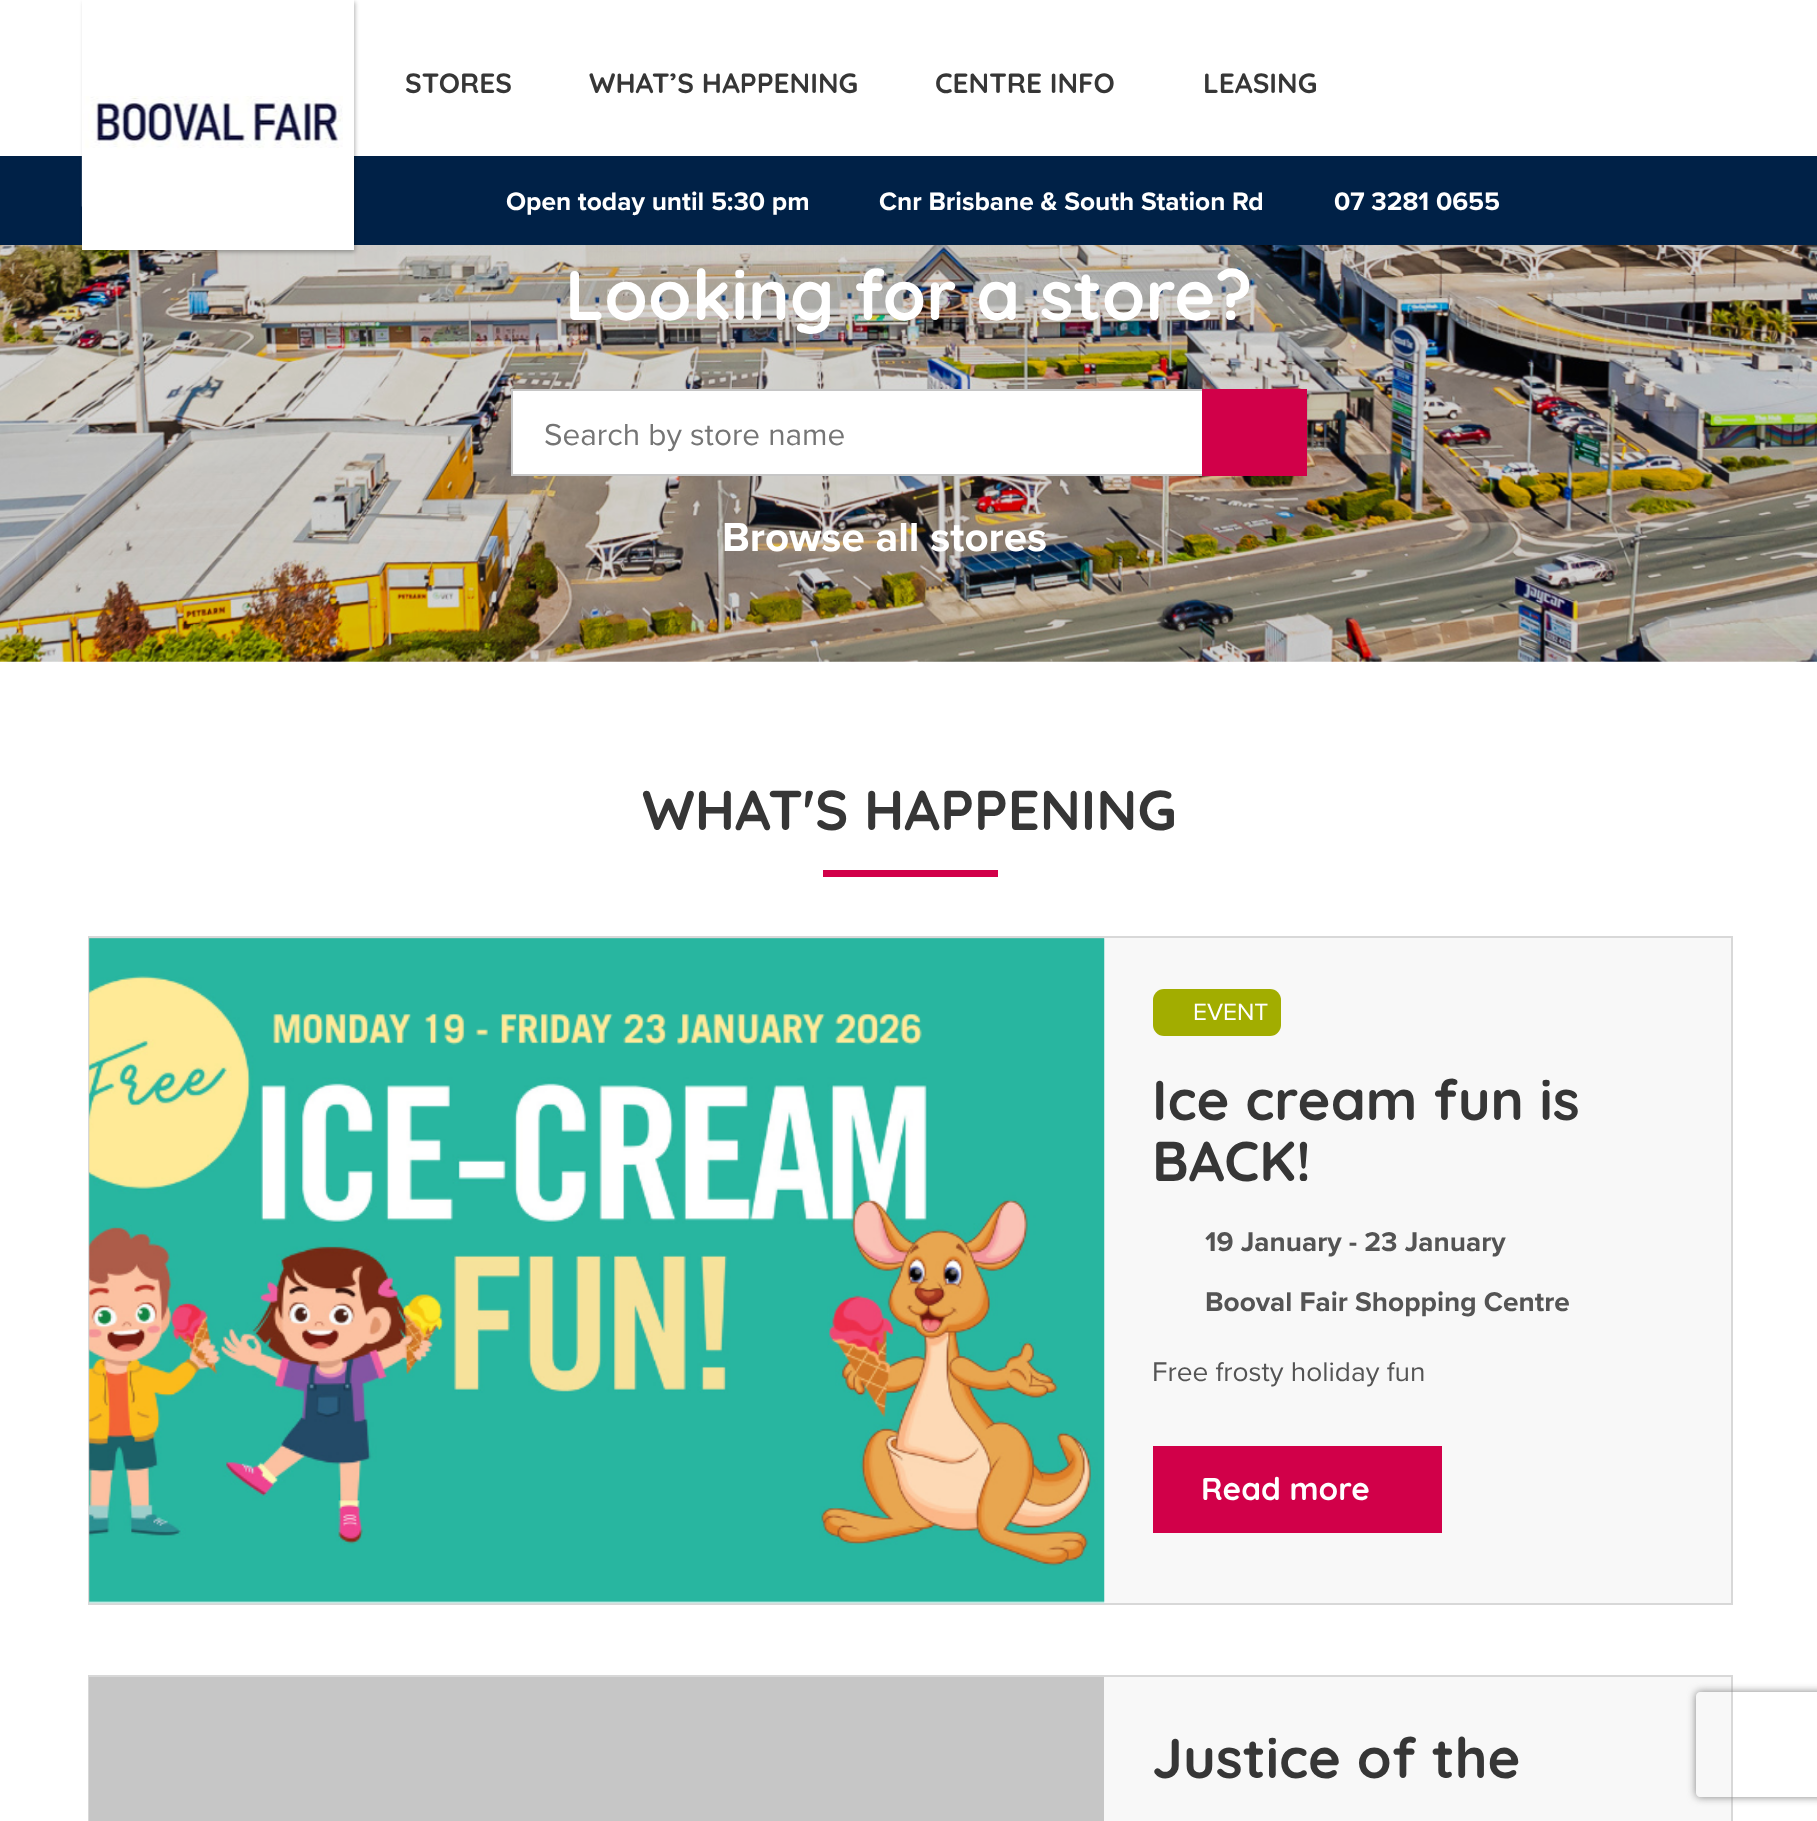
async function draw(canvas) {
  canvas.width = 1817;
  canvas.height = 1821;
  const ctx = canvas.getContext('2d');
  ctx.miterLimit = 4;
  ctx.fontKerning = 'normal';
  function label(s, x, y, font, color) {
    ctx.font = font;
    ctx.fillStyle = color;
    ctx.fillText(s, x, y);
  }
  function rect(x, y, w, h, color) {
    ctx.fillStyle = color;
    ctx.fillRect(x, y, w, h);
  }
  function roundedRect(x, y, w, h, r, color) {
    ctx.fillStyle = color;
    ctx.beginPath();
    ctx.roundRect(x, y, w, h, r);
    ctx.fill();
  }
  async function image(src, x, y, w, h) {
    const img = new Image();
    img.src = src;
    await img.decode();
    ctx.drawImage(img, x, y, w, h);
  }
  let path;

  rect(0, 0, 1817, 1821, '#fff');
  rect(0, 156, 1817, 89, '#002147');
  await image('assets/img2.png', 0, 245, 1817, 417);
  ctx.fillStyle = '#0000004d';
  ctx.filter = 'blur(2px)';
  ctx.beginPath();
  ctx.rect(84, 2, 271, 250);
  ctx.fill();
  ctx.filter = 'none';
  rect(82, 0, 272, 250, '#fff');
  await image('assets/img1.png', 81, 96, 262, 111);
  label('STORES', 405, 93, '300 28px Quicksand', '#363636');
  label('WHAT’S HAPPENING', 589, 93, '300 28px Quicksand', '#363636');
  label('CENTRE INFO', 935, 93, '300 28px Quicksand', '#363636');
  label('LEASING', 1203, 93, '300 28px Quicksand', '#363636');
  label('Open today until 5:30 pm', 506, 210, 'bold 26.25px Proxima Nova', '#fff');
  label('Cnr Brisbane & South Station Rd', 879, 210, 'bold 26.25px Proxima Nova', '#fff');
  label('07 3281 0655', 1334, 210, 'bold 26.25px Proxima Nova', '#fff');
  label('Looking for a store?', 565, 320, '300 70px Quicksand', '#fff');
  rect(513, 391, 689, 83, '#fff');
  ctx.strokeStyle = '#c6c6c6';
  ctx.lineWidth = 2;
  ctx.strokeRect(512, 390, 794, 85);
  label('Search by store name', 544, 445, '31.5px Proxima Nova', '#757575');
  rect(1202, 389, 105, 87, '#d10049');
  label('Browse all stores', 722, 551, 'bold 42px Proxima Nova', '#fff');
  label('WHAT\'S HAPPENING', 642, 830, '300 56px Quicksand', '#363636');
  rect(823, 870, 175, 7, '#d10049');
  rect(1104, 938, 627, 665, '#f8f8f8');
  ctx.strokeStyle = '#d8d8d8';
  ctx.strokeRect(89, 937, 1643, 667);
  rect(89, 938, 1015, 665, '#c6c6c6');
  await image('assets/img3.png', 89, 938, 1016, 666);
  roundedRect(1153, 989, 128, 47, 11, '#a2ad00');
  label('EVENT', 1193, 1020, '24.5px Proxima Nova', '#fff');
  label('Ice cream fun is', 1152, 1120, '300 56px Quicksand', '#363636');
  label('BACK!', 1152, 1181, '300 56px Quicksand', '#363636');
  label('19 January - 23 January', 1205, 1251, 'bold 28px Proxima Nova', '#545454');
  label('Booval Fair Shopping Centre', 1205, 1311, 'bold 28px Proxima Nova', '#545454');
  label('Free frosty holiday fun', 1152, 1381, '28px Proxima Nova', '#545454');
  rect(1153, 1446, 289, 87, '#d10049');
  label('Read more', 1201, 1500, '300 31.5px Quicksand', '#fff');
  rect(1104, 1677, 627, 144, '#f8f8f8');
  ctx.strokeRect(89, 1676, 1643, 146);
  rect(89, 1677, 1015, 144, '#c6c6c6');
  label('Justice of the', 1152, 1778, '300 56px Quicksand', '#363636');
  ctx.save();
  path = new Path2D('M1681 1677H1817V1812H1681ZM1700 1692H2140C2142 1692 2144 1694 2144 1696V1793C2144 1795 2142 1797 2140 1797H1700C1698 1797 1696 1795 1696 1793V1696C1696 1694 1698 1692 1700 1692Z');
  ctx.clip(path, 'evenodd');
  ctx.fillStyle = '#808080';
  ctx.filter = 'blur(4.5px)';
  ctx.beginPath();
  ctx.roundRect(1696, 1692, 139, 105, 4);
  ctx.fill();
  ctx.filter = 'none';
  ctx.restore();
}

draw(document.querySelector('canvas'));
